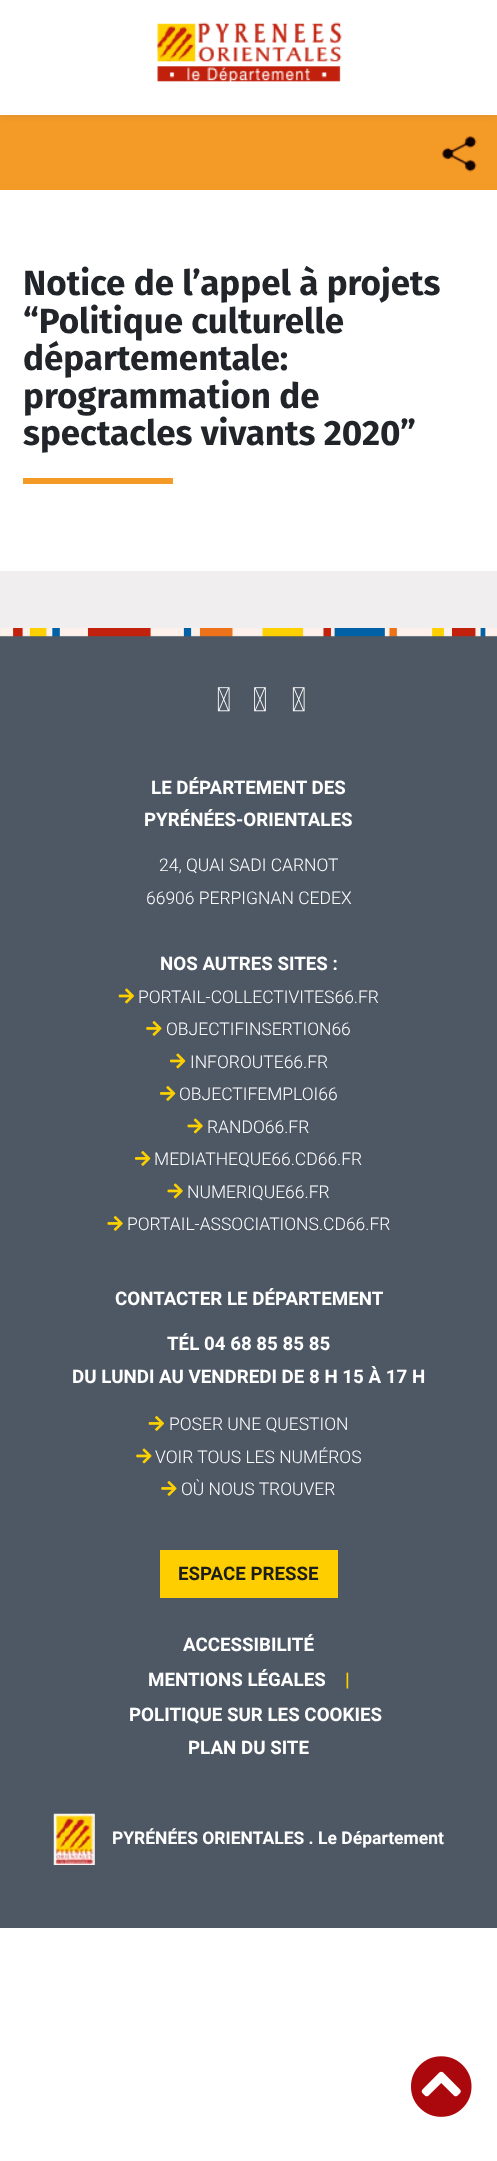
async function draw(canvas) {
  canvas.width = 497;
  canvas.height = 2161;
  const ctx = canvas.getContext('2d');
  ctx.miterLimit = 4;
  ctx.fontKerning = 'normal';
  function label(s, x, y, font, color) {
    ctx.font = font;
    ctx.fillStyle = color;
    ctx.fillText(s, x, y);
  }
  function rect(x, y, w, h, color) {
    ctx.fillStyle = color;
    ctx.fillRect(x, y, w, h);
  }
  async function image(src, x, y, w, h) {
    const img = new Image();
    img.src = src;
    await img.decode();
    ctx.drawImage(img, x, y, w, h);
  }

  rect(0, 0, 497, 2161, '#fff');
  rect(0, 115, 497, 75, '#f49b27');
  ctx.save();
  ctx.beginPath();
  ctx.rect(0, 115, 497, 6);
  ctx.clip();
  ctx.fillStyle = '#5a5a5a33';
  ctx.filter = 'blur(4.5px)';
  ctx.beginPath();
  ctx.rect(-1, 0, 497, 115);
  ctx.fill();
  ctx.filter = 'none';
  ctx.restore();
  await image('assets/img1.png', 157, 22, 185, 60);
  rect(0, 571, 497, 57, '#f0eeef');
  await image('assets/img2.png', 441, 136, 36, 36);
  label('Notice de l’appel à projets', 23, 295, 'bold 35px Fira Sans', '#212529');
  label('“Politique culturelle', 23, 333, 'bold 35px Fira Sans', '#212529');
  label('départementale:', 23, 370, 'bold 35px Fira Sans', '#212529');
  label('programmation de', 23, 408, 'bold 35px Fira Sans', '#212529');
  label('spectacles vivants 2020”', 23, 445, 'bold 35px Fira Sans', '#212529');
  rect(23, 478, 150, 6, '#f49b27');
  rect(0, 635, 497, 1293, '#4e5864');
  await image('assets/img3.png', 0, 628, 497, 9);
  await image('assets/img4.png', 217, 687, 13, 25);
  await image('assets/img5.png', 254, 687, 12, 25);
  await image('assets/img4.png', 292, 687, 13, 25);
  label('LE DÉPARTEMENT DES', 151, 794, 'bold 18.75px Roboto', '#fff');
  label('PYRÉNÉES-ORIENTALES', 144, 826, 'bold 18.75px Roboto', '#fff');
  label('24, QUAI SADI CARNOT', 159, 871, '300 17.5px Roboto', '#fff');
  label('66906 PERPIGNAN CEDEX', 146, 904, '300 17.5px Roboto', '#fff');
  label('NOS AUTRES SITES :', 160, 970, 'bold 18.75px Roboto', '#fff');
  await image('assets/img6.png', 118, 988, 16, 16);
  label('PORTAIL-COLLECTIVITES66.FR', 138, 1003, '300 17.5px Roboto', '#fff');
  await image('assets/img7.png', 146, 1021, 16, 15);
  label('OBJECTIFINSERTION66', 166, 1035, '300 17.5px Roboto', '#fff');
  await image('assets/img8.png', 170, 1053, 16, 16);
  label('INFOROUTE66.FR', 190, 1068, '300 17.5px Roboto', '#fff');
  await image('assets/img9.png', 160, 1086, 16, 15);
  label('OBJECTIFEMPLOI66', 179, 1100, '300 17.5px Roboto', '#fff');
  await image('assets/img10.png', 187, 1118, 16, 16);
  label('RANDO66.FR', 207, 1133, '300 17.5px Roboto', '#fff');
  await image('assets/img9.png', 135, 1151, 16, 15);
  label('MEDIATHEQUE66.CD66.FR', 154, 1165, '300 17.5px Roboto', '#fff');
  await image('assets/img10.png', 167, 1183, 16, 16);
  label('NUMERIQUE66.FR', 187, 1198, '300 17.5px Roboto', '#fff');
  await image('assets/img11.png', 107, 1216, 16, 15);
  label('PORTAIL-ASSOCIATIONS.CD66.FR', 127, 1230, '300 17.5px Roboto', '#fff');
  label('CONTACTER LE DÉPARTEMENT', 115, 1305, 'bold 18.75px Roboto', '#fff');
  label('TÉL 04 68 85 85 85', 167, 1350, 'bold 18.75px Roboto', '#fff');
  label('DU LUNDI AU VENDREDI DE 8 H 15 À 17 H', 72, 1383, 'bold 18.75px Roboto', '#fff');
  await image('assets/img12.png', 148, 1416, 16, 15);
  label('POSER UNE QUESTION', 169, 1430, '300 17.5px Roboto', '#fff');
  await image('assets/img13.png', 136, 1448, 16, 16);
  label('VOIR TOUS LES NUMÉROS', 155, 1463, '300 17.5px Roboto', '#fff');
  await image('assets/img7.png', 161, 1481, 16, 15);
  label('OÙ NOUS TROUVER', 181, 1495, '300 17.5px Roboto', '#fff');
  rect(160, 1550, 178, 48, '#ffce01');
  label('ESPACE PRESSE', 178, 1580, 'bold 18.75px Roboto', '#1d1e19');
  label('ACCESSIBILITÉ', 183, 1651, 'bold 18.75px Roboto', '#fff');
  label('MENTIONS LÉGALES', 148, 1686, 'bold 18.75px Roboto', '#fff');
  label('|', 345, 1686, 'bold 18.75px Roboto', '#fdd000');
  label('POLITIQUE SUR LES COOKIES', 129, 1721, 'bold 18.75px Roboto', '#fff');
  label('PLAN DU SITE', 188, 1754, 'bold 18.75px Roboto', '#fff');
  await image('assets/img14.png', 53, 1813, 42, 52);
  label('PYRÉNÉES ORIENTALES . Le Département', 112, 1844, 'bold 17.5px Roboto', '#fff');
  await image('assets/img15.png', 411, 2056, 61, 61);
}

draw(document.querySelector('canvas'));
